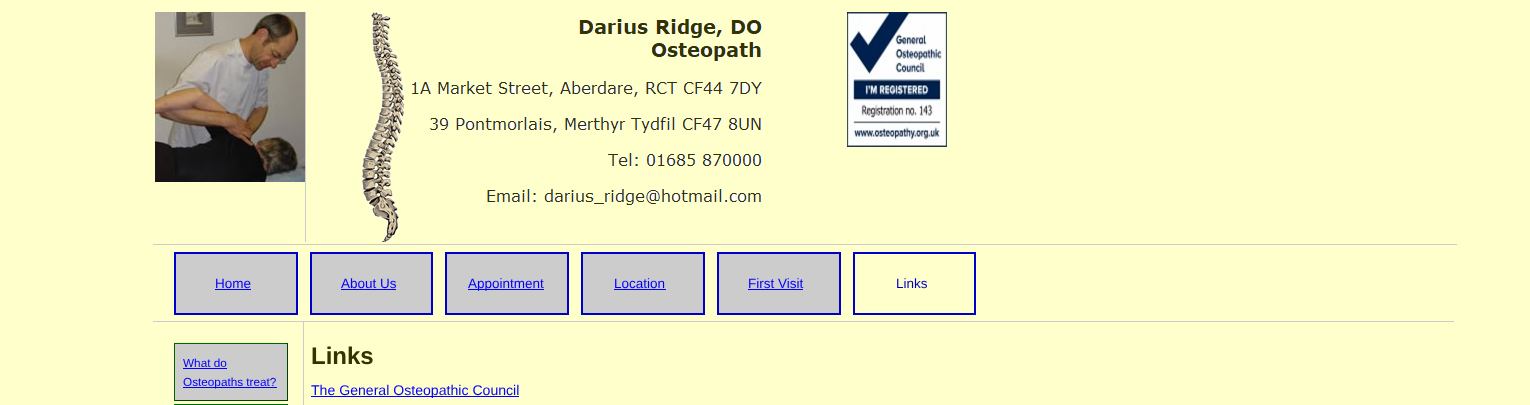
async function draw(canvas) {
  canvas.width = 1530;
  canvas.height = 405;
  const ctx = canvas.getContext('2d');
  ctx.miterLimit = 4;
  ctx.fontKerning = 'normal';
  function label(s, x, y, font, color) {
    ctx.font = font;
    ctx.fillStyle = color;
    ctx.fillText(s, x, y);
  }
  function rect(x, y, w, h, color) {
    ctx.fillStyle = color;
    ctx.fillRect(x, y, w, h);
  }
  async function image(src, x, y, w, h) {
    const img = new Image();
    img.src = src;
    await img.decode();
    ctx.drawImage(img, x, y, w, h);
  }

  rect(0, 0, 1530, 405, '#ffc');
  rect(153, 244, 1304, 1, '#ccc');
  await image('assets/img1.png', 155, 12, 150, 170);
  rect(305, 12, 1, 230, '#ccc');
  await image('assets/img2.png', 362, 12, 42, 230);
  await image('assets/img3.png', 411, 19, 351, 186);
  await image('assets/img4.png', 847, 12, 100, 135);
  ctx.beginPath();
  ctx.rect(175, 253, 122, 61);
  ctx.fill();
  ctx.strokeStyle = '#00c';
  ctx.lineWidth = 2;
  ctx.stroke();
  label('Home', 215, 288, '13.5px Liberation Sans', '#00f');
  rect(215, 289, 36, 1, '#00f');
  ctx.fillStyle = '#ccc';
  ctx.beginPath();
  ctx.rect(311, 253, 121, 61);
  ctx.fill();
  ctx.stroke();
  label('About Us', 341, 288, '13.5px Liberation Sans', '#00f');
  rect(341, 289, 55, 1, '#00f');
  ctx.fillStyle = '#ccc';
  ctx.beginPath();
  ctx.rect(446, 253, 122, 61);
  ctx.fill();
  ctx.stroke();
  rect(468, 289, 76, 1, '#00f');
  label('Appointment', 468, 288, '13.5px Liberation Sans', '#00f');
  ctx.fillStyle = '#ccc';
  ctx.beginPath();
  ctx.rect(582, 253, 122, 61);
  ctx.fill();
  ctx.stroke();
  label('Location', 614, 288, '13.5px Liberation Sans', '#00f');
  rect(614, 289, 52, 1, '#00f');
  ctx.fillStyle = '#ccc';
  ctx.beginPath();
  ctx.rect(718, 253, 122, 61);
  ctx.fill();
  ctx.stroke();
  label('First Visit', 748, 288, '13.5px Liberation Sans', '#00f');
  rect(748, 289, 55, 1, '#00f');
  ctx.strokeRect(854, 253, 121, 61);
  label('Links', 896, 288, '13.5px Liberation Sans', '#00c');
  rect(153, 321, 1301, 1, '#ccc');
  rect(175, 344, 112, 56, '#ccc');
  rect(174, 343, 114, 1, '#060');
  rect(287, 343, 1, 58, '#040');
  rect(174, 400, 114, 1, '#040');
  rect(174, 343, 1, 58, '#060');
  label('What do', 183, 367, '11.75px Liberation Sans', '#00f');
  rect(183, 368, 44, 1, '#00f');
  rect(183, 387, 94, 1, '#00f');
  label('Osteopaths treat?', 183, 386, '11.75px Liberation Sans', '#00f');
  rect(174, 404, 114, 1, '#060');
  rect(287, 404, 1, 1, '#040');
  rect(303, 322, 1, 83, '#ccc');
  label('Links', 311, 364, 'bold 24px Liberation Sans', '#330');
  rect(311, 396, 208, 1, '#00f');
  label('The General Osteopathic Council', 311, 395, '14.1px Liberation Sans', '#00f');
}

draw(document.querySelector('canvas'));
